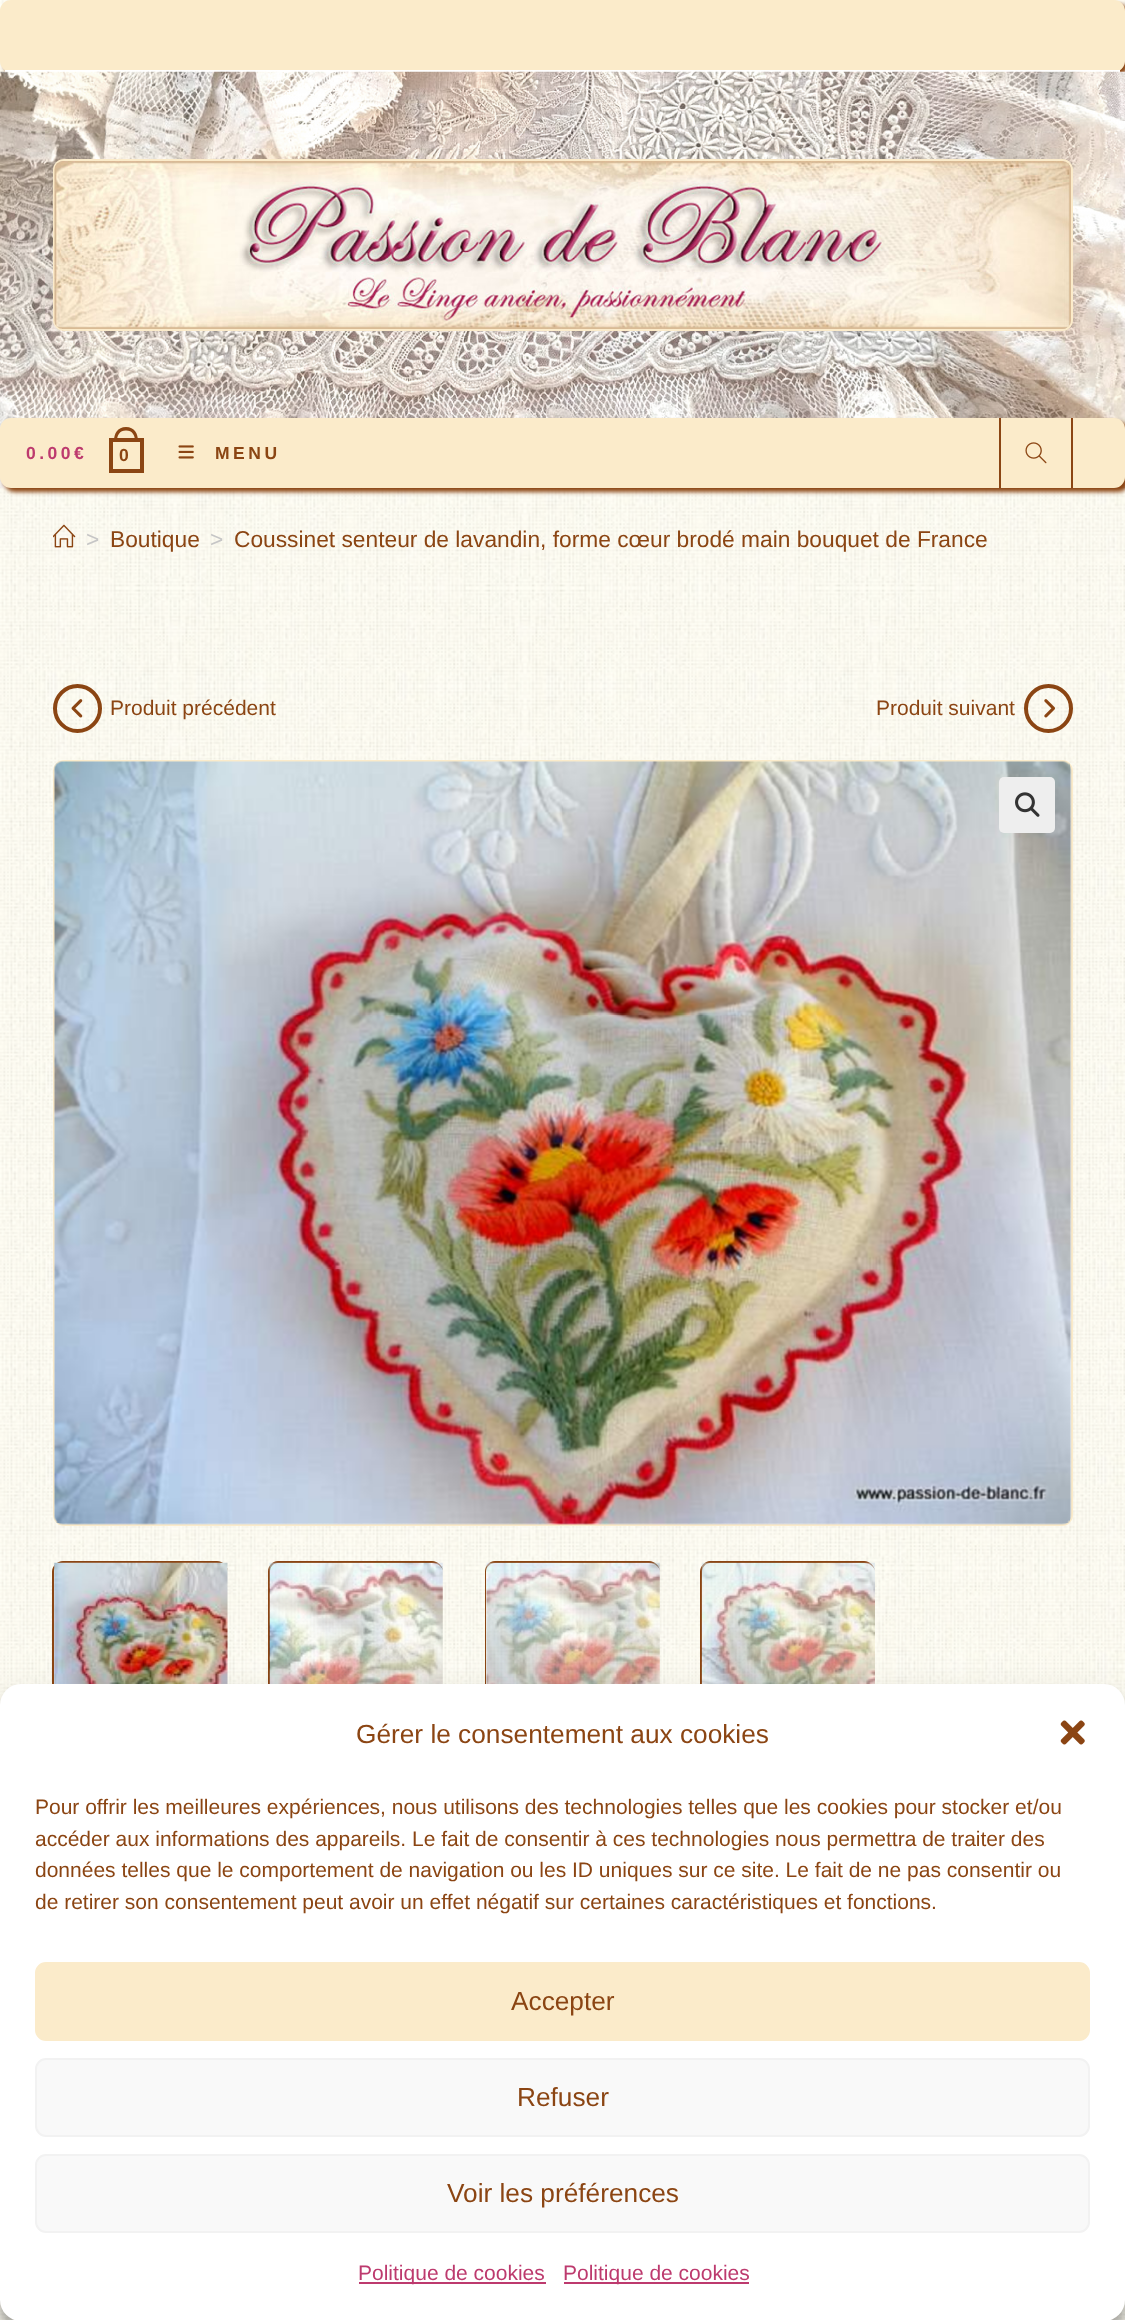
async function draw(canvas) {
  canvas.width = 1125;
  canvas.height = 2320;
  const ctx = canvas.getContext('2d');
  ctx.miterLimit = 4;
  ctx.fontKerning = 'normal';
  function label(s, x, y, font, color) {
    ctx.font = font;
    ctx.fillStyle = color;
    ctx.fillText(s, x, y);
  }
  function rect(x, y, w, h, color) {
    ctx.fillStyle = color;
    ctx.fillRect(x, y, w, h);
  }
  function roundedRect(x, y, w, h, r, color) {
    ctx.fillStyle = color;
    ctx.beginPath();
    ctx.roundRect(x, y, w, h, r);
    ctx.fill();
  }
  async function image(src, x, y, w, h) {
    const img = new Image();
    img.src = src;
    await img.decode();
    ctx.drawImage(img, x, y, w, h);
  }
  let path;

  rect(0, 0, 1125, 2320, '#fff');
  await image('assets/img1.png', 0, 0, 1125, 2320);
  ctx.fillStyle = '#8b4513';
  ctx.filter = 'blur(2px)';
  ctx.beginPath();
  ctx.roundRect(4, 4, 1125, 71, 11);
  ctx.fill();
  ctx.filter = 'none';
  roundedRect(0, 0, 1125, 72, 11, '#fbebca');
  rect(5, 70, 1115, 2, '#fff');
  await image('assets/img2.png', 0, 71, 1125, 418);
  ctx.beginPath();
  ctx.roundRect(54, 160, 1018, 170, 10);
  ctx.strokeStyle = '#fbebca';
  ctx.lineWidth = 2;
  ctx.stroke();
  await image('assets/img3.png', 54, 161, 1017, 168);
  ctx.fillStyle = '#8b4513';
  ctx.filter = 'blur(2px)';
  ctx.beginPath();
  ctx.roundRect(4, 422, 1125, 70, 11);
  ctx.fill();
  ctx.filter = 'none';
  roundedRect(0, 418, 1125, 70, 11, '#fbebca');
  ctx.letterSpacing = '3.5px';
  label('0.00€', 26, 459, 'bold 17.5px Liberation Sans', '#bd3a6e');
  ctx.strokeStyle = '#8b4513';
  ctx.lineWidth = 4;
  ctx.strokeRect(111, 440, 31, 31);
  ctx.fillStyle = '#8b4513';
  path = new Path2D('M126 427C134.5 427 138 433.5 138 441H114C114 433.5 117.5 427 126 427ZM126 430.5C132.5 430.5 135 435.5 135 441H117C117 435.5 119.5 430.5 126 430.5Z');
  ctx.fill(path, 'evenodd');
  label('0', 119, 461, 'bold 17.5px Liberation Sans', '#8b4513');
  await image('assets/img4.png', 178, 445, 16, 14);
  label('MENU', 215, 459, 'bold 17.5px Liberation Sans', '#8b4513');
  rect(1071, 418, 2, 70, '#8b4513');
  rect(999, 418, 2, 70, '#8b4513');
  await image('assets/img5.png', 1025, 442, 22, 22);
  await image('assets/img6.png', 53, 524, 23, 24);
  ctx.letterSpacing = '0px';
  label('>', 86, 547, '22.75px Liberation Sans', '#c6c6c6');
  label('Boutique', 110, 547, '22.75px Liberation Sans', '#8b4513');
  label('>', 210, 547, '22.75px Liberation Sans', '#c6c6c6');
  label('Coussinet senteur de lavandin, forme cœur brodé main bouquet de France', 234, 547, '22.75px Liberation Sans', '#8b4513');
  ctx.beginPath();
  ctx.arc(77.5, 708.5, 22.5, 0, 2 * Math.PI);
  ctx.stroke();
  await image('assets/img7.png', 71, 699, 12, 19);
  label('Produit précédent', 110, 715, '21px Liberation Sans', '#8b4513');
  label('Produit suivant', 876, 715, '21px Liberation Sans', '#8b4513');
  ctx.beginPath();
  ctx.arc(1048.5, 708.5, 22.5, 0, 2 * Math.PI);
  ctx.stroke();
  await image('assets/img8.png', 1044, 699, 11, 19);
  ctx.beginPath();
  ctx.roundRect(54, 761, 1018, 764, 10);
  ctx.strokeStyle = '#fbebca';
  ctx.lineWidth = 2;
  ctx.stroke();
  await image('assets/img9.png', 53, 761, 1019, 764);
  roundedRect(999, 777, 56, 56, 5, '#eee');
  await image('assets/img10.png', 1015, 792, 25, 25);
  ctx.fillStyle = '#8b4513';
  path = new Path2D('M63 1561H217C223 1561 228 1566 228 1572V1727C228 1733 223 1738 217 1738H63C57 1738 52 1733 52 1727V1572C52 1566 57 1561 63 1561ZM63 1563H217C223 1563 228 1567 228 1572V1727C228 1732 223 1736 217 1736H63C58 1736 54 1732 54 1727V1572C54 1567 58 1563 63 1563Z');
  ctx.fill(path, 'evenodd');
  await image('assets/img11.png', 54, 1562, 174, 122);
  path = new Path2D('M278 1561H432C438 1561 443 1566 443 1572V1727C443 1733 438 1738 432 1738H278C272 1738 268 1733 268 1727V1572C268 1566 272 1561 278 1561ZM278 1563H432C438 1563 443 1567 443 1572V1727C443 1732 438 1736 432 1736H278C273 1736 270 1732 270 1727V1572C270 1567 273 1563 278 1563Z');
  ctx.fill(path, 'evenodd');
  await image('assets/img12.png', 269, 1562, 174, 122);
  path = new Path2D('M495 1561H649C655 1561 660 1566 660 1572V1727C660 1733 655 1738 649 1738H495C489 1738 485 1733 485 1727V1572C485 1566 489 1561 495 1561ZM495 1563H649C655 1563 660 1567 660 1572V1727C660 1732 655 1736 649 1736H495C490 1736 486 1732 486 1727V1572C486 1567 490 1563 495 1563Z');
  ctx.fill(path, 'evenodd');
  await image('assets/img13.png', 486, 1562, 174, 122);
  path = new Path2D('M710 1561H864C870 1561 875 1566 875 1572V1727C875 1733 870 1738 864 1738H710C705 1738 700 1733 700 1727V1572C700 1566 705 1561 710 1561ZM710 1563H864C870 1563 875 1567 875 1572V1727C875 1732 870 1736 864 1736H710C706 1736 702 1732 702 1727V1572C702 1567 706 1563 710 1563Z');
  ctx.fill(path, 'evenodd');
  await image('assets/img14.png', 701, 1562, 174, 122);
  ctx.fillStyle = '#0000003b';
  ctx.filter = 'blur(5px)';
  ctx.beginPath();
  ctx.roundRect(0, 1694, 1125, 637, 21);
  ctx.fill();
  ctx.filter = 'none';
  ctx.fillStyle = '#00000030';
  ctx.filter = 'blur(17.5px)';
  ctx.beginPath();
  ctx.roundRect(0, 1701, 1125, 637, 21);
  ctx.fill();
  ctx.filter = 'none';
  roundedRect(0, 1684, 1125, 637, 21, '#fff');
  label('Gérer le consentement aux cookies', 356, 1743, '26.25px Liberation Sans', '#8b4513');
  await image('assets/img15.png', 1060, 1720, 25, 25);
  label('Pour offrir les meilleures expériences, nous utilisons des technologies telles que les cookies pour stocker et/ou', 35, 1814, '21px Liberation Sans', '#8b4513');
  label('accéder aux informations des appareils. Le fait de consentir à ces technologies nous permettra de traiter des', 35, 1846, '21px Liberation Sans', '#8b4513');
  label('données telles que le comportement de navigation ou les ID uniques sur ce site. Le fait de ne pas consentir ou', 35, 1877, '21px Liberation Sans', '#8b4513');
  label('de retirer son consentement peut avoir un effet négatif sur certaines caractéristiques et fonctions.', 35, 1909, '21px Liberation Sans', '#8b4513');
  ctx.fillStyle = '#fbebca';
  ctx.beginPath();
  ctx.roundRect(36, 1963, 1053, 77, 10);
  ctx.fill();
  ctx.stroke();
  label('Accepter', 511, 2010, '26.25px Liberation Sans', '#8b4513');
  ctx.fillStyle = '#f9f9f9';
  ctx.beginPath();
  ctx.roundRect(36, 2059, 1053, 77, 10);
  ctx.fill();
  ctx.strokeStyle = '#f2f2f2';
  ctx.stroke();
  label('Refuser', 517, 2106, '26.25px Liberation Sans', '#8b4513');
  ctx.fillStyle = '#f9f9f9';
  ctx.beginPath();
  ctx.roundRect(36, 2155, 1053, 77, 10);
  ctx.fill();
  ctx.stroke();
  label('Voir les préférences', 447, 2202, '26.25px Liberation Sans', '#8b4513');
  rect(359, 2282, 187, 2, '#bd3a6e');
  label('Politique de cookies', 358, 2280, '21px Liberation Sans', '#bd3a6e');
  rect(564, 2282, 185, 2, '#bd3a6e');
  label('Politique de cookies', 563, 2280, '21px Liberation Sans', '#bd3a6e');
}

draw(document.querySelector('canvas'));
